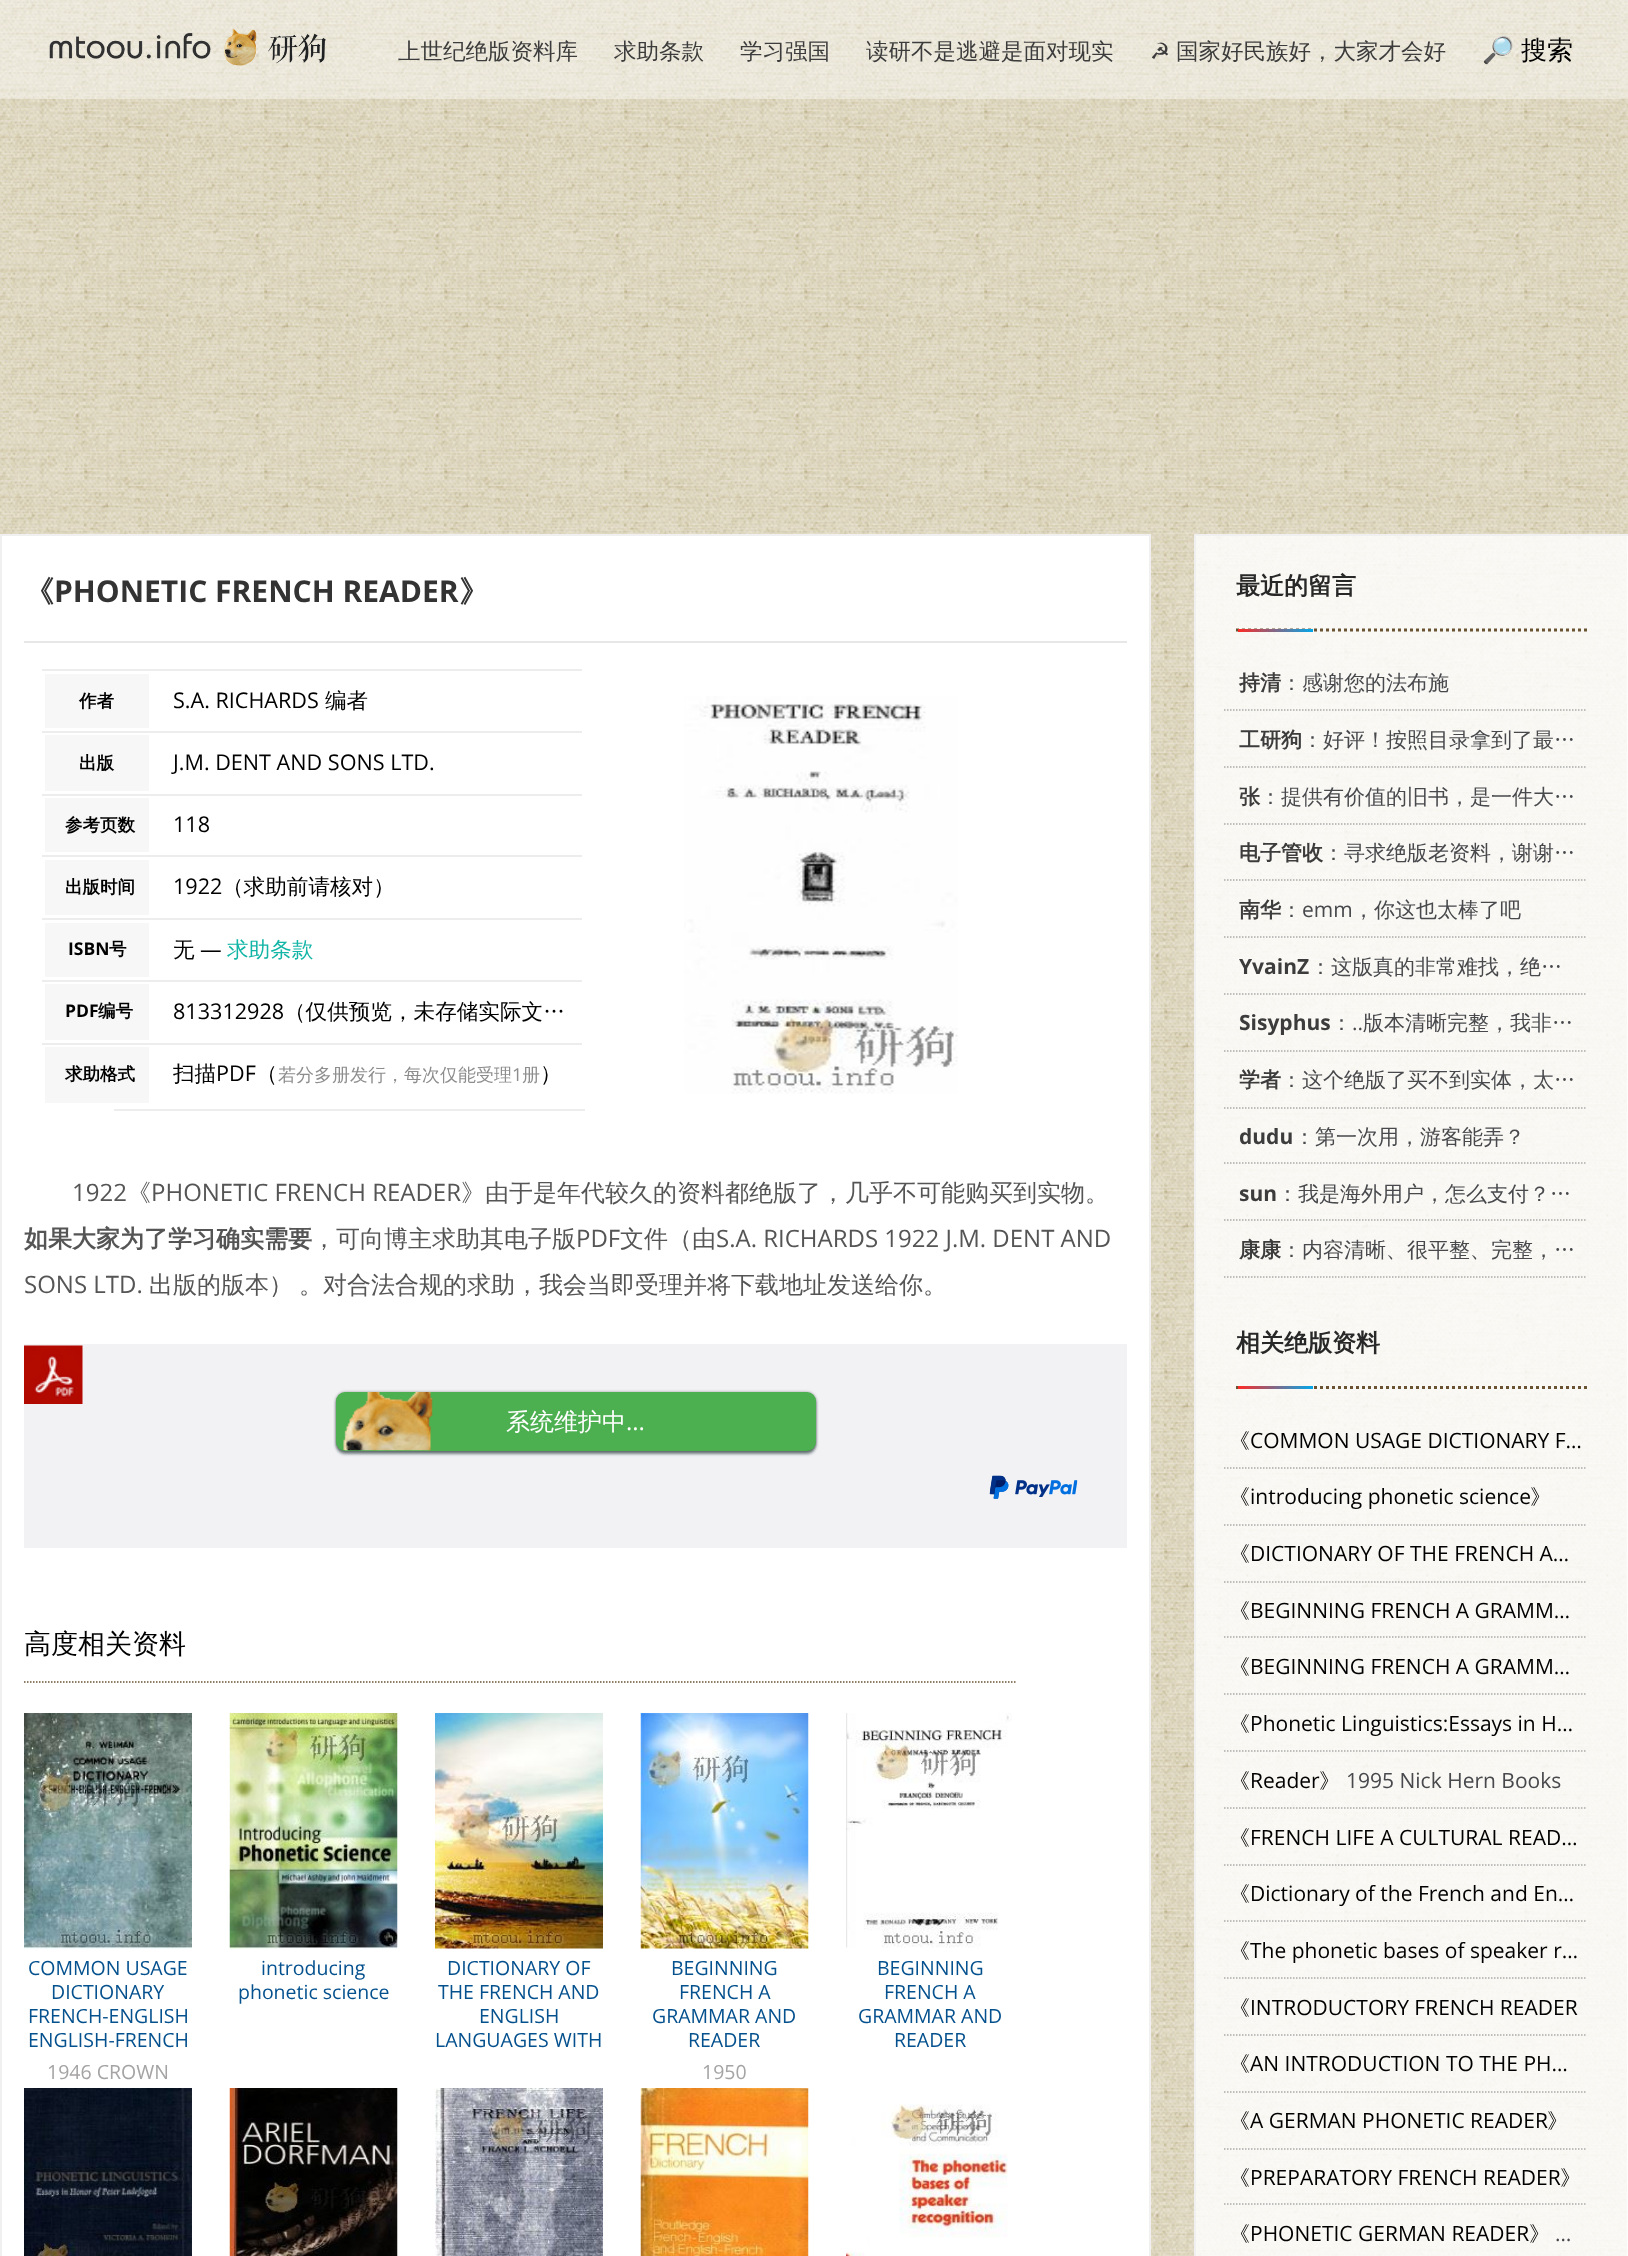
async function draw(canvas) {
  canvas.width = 1628;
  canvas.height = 2256;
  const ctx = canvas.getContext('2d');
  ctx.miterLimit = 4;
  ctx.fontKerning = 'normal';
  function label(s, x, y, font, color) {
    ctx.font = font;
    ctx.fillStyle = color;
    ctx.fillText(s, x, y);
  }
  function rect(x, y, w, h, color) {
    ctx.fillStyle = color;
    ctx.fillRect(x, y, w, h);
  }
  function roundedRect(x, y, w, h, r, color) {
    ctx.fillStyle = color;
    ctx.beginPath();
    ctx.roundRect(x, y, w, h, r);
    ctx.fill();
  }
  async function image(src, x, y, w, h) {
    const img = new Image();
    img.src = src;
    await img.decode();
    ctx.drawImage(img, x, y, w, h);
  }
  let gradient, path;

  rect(0, 0, 1628, 2256, '#fff');
  await image('assets/img1.png', 0, 0, 1628, 2256);
  rect(0, 0, 1628, 99, '#ffffff69');
  await image('assets/img2.png', 49, 28, 277, 38);
  label('上世纪绝版资料库', 398, 59, '500 22.5px WenQuanYi Zen Hei', '#3c3c3c');
  label('求助条款', 614, 59, '500 22.5px WenQuanYi Zen Hei', '#3c3c3c');
  label('学习强国', 740, 59, '500 22.5px WenQuanYi Zen Hei', '#3c3c3c');
  label('读研不是逃避是面对现实', 866, 59, '500 22.5px WenQuanYi Zen Hei', '#3c3c3c');
  label('☭', 1150, 59, '22.5px DejaVu Sans', '#3c3c3c');
  label('国家好民族好，大家才会好', 1176, 59, '500 22.5px WenQuanYi Zen Hei', '#3c3c3c');
  label('🔎', 1482, 59, '26px Noto Color Emoji', '#000');
  label('搜索', 1521, 59, '500 26px WenQuanYi Zen Hei', '#000');
  ctx.fillStyle = '#fff';
  ctx.beginPath();
  ctx.rect(1, 535, 1149, 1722);
  ctx.fill();
  ctx.strokeStyle = '#f0f0f0';
  ctx.lineWidth = 2;
  ctx.stroke();
  rect(24, 641, 1103, 2, '#e7e7e7');
  label('《', 24, 602, 'bold 30px WenQuanYi Zen Hei', '#333');
  label('PHONETIC FRENCH READER', 54, 602, 'bold 30px Open Sans', '#333');
  label('》', 459, 602, 'bold 30px WenQuanYi Zen Hei', '#333');
  rect(114, 1109, 471, 2, '#ededed');
  rect(42, 669, 540, 2, '#ededed');
  rect(45, 674, 104, 54, '#f7f7f7');
  label('作者', 79, 707, 'bold 17.5px WenQuanYi Zen Hei', '#000');
  label('S.A. RICHARDS', 173, 708, '21.6px Open Sans', '#000');
  label('编者', 325, 708, '500 21.6px WenQuanYi Zen Hei', '#000');
  rect(42, 731, 540, 2, '#ededed');
  rect(45, 735, 104, 56, '#f7f7f7');
  label('出版', 79, 769, 'bold 17.5px WenQuanYi Zen Hei', '#000');
  label('J.M. DENT AND SONS LTD.', 173, 770, '21.6px Open Sans', '#000');
  rect(42, 794, 540, 2, '#ededed');
  rect(45, 798, 104, 54, '#f7f7f7');
  label('参考页数', 65, 831, 'bold 17.5px WenQuanYi Zen Hei', '#000');
  label('118', 173, 832, '21.6px Open Sans', '#000');
  rect(42, 855, 540, 2, '#ededed');
  rect(45, 860, 104, 55, '#f7f7f7');
  label('出版时间', 65, 893, 'bold 17.5px WenQuanYi Zen Hei', '#000');
  label('1922', 173, 894, '21.6px Open Sans', '#000');
  label('（求助前请核对）', 222, 894, '500 21.6px WenQuanYi Zen Hei', '#000');
  rect(42, 918, 540, 2, '#ededed');
  rect(45, 923, 104, 54, '#f7f7f7');
  label('ISBN', 68, 955, 'bold 17.5px Open Sans', '#000');
  label('号', 109, 955, 'bold 17.5px WenQuanYi Zen Hei', '#000');
  label('无', 173, 957, '500 21.6px WenQuanYi Zen Hei', '#000');
  label('—', 200, 957, '21.6px Open Sans', '#000');
  label('求助条款', 227, 957, '500 21.6px WenQuanYi Zen Hei', '#13b5a6');
  rect(42, 980, 540, 2, '#ededed');
  rect(45, 984, 104, 56, '#f7f7f7');
  label('PDF', 65, 1017, 'bold 17.5px Open Sans', '#000');
  label('编号', 98, 1017, 'bold 17.5px WenQuanYi Zen Hei', '#000');
  label('813312928', 173, 1019, '21.6px Open Sans', '#000');
  label('（仅供预览，未存储实际文…', 284, 1019, '500 21.6px WenQuanYi Zen Hei', '#000');
  rect(42, 1043, 540, 2, '#ededed');
  rect(45, 1047, 104, 56, '#f7f7f7');
  label('求助格式', 65, 1080, 'bold 17.5px WenQuanYi Zen Hei', '#000');
  label('扫描', 173, 1081, '500 21.6px WenQuanYi Zen Hei', '#000');
  label('PDF', 216, 1081, '21.6px Open Sans', '#000');
  label('（', 256, 1081, '500 21.6px WenQuanYi Zen Hei', '#000');
  label('若分多册发行，每次仅能受理', 278, 1081, '500 18px WenQuanYi Zen Hei', '#8d8d8d');
  label('1', 512, 1081, '18px Open Sans', '#8d8d8d');
  label('册', 522, 1081, '500 18px WenQuanYi Zen Hei', '#8d8d8d');
  label('）', 540, 1081, '500 21.6px WenQuanYi Zen Hei', '#000');
  await image('assets/img3.png', 684, 696, 274, 398);
  label('1922', 72, 1201, '24px Open Sans', '#555');
  label('《', 127, 1201, '500 24px WenQuanYi Zen Hei', '#555');
  label('PHONETIC FRENCH READER', 151, 1201, '24px Open Sans', '#555');
  label('》由于是年代较久的资料都绝版了，几乎不可能购买到实物。', 461, 1201, '500 24px WenQuanYi Zen Hei', '#555');
  label('如果大家为了学习确实需要', 24, 1247, 'bold 24px WenQuanYi Zen Hei', '#555');
  label('，可向博主求助其电子版', 312, 1247, '500 24px WenQuanYi Zen Hei', '#555');
  label('PDF', 576, 1247, '24px Open Sans', '#555');
  label('文件（由', 620, 1247, '500 24px WenQuanYi Zen Hei', '#555');
  label('S.A. RICHARDS 1922 J.M. DENT AND', 716, 1247, '24px Open Sans', '#555');
  label('SONS LTD.', 24, 1293, '24px Open Sans', '#555');
  label('出版的版本）', 149, 1293, '500 24px WenQuanYi Zen Hei', '#555');
  label('。对合法合规的求助，我会当即受理并将下载地址发送给你。', 299, 1293, '500 24px WenQuanYi Zen Hei', '#555');
  rect(24, 1344, 1103, 204, '#f2f2f5');
  await image('assets/img4.png', 24, 1345, 59, 59);
  ctx.fillStyle = '#07221f8a';
  ctx.filter = 'blur(1.5px)';
  ctx.beginPath();
  ctx.roundRect(336, 1395, 480, 59, 9);
  ctx.fill();
  ctx.filter = 'none';
  ctx.fillStyle = '#00000059';
  ctx.filter = 'blur(1.5px)';
  ctx.beginPath();
  ctx.roundRect(336, 1392, 480, 59, 9);
  ctx.fill();
  ctx.filter = 'none';
  roundedRect(336, 1392, 480, 59, 9, '#4caf50');
  await image('assets/img5.png', 343, 1392, 90, 59);
  label('系统维护中', 506, 1430, '500 24px WenQuanYi Zen Hei', '#fff');
  label('...', 626, 1430, '24px Open Sans', '#fff');
  await image('assets/img6.png', 989, 1475, 89, 24);
  path = new Path2D('M24 1682H1017');
  ctx.strokeStyle = '#695332';
  ctx.lineWidth = 1.5;
  ctx.setLineDash([1.5, 1.5]);
  ctx.stroke(path);
  label('高度相关资料', 24, 1653, '500 27px WenQuanYi Zen Hei', '#000');
  await image('assets/img7.png', 24, 1713, 168, 236);
  label('COMMON USAGE', 28, 1975, '19.5px Open Sans', '#05518e');
  label('DICTIONARY', 51, 1999, '19.5px Open Sans', '#05518e');
  label('FRENCH-ENGLISH', 28, 2023, '19.5px Open Sans', '#05518e');
  label('ENGLISH-FRENCH', 28, 2047, '19.5px Open Sans', '#05518e');
  label('1946 CROWN', 47, 2079, '19.5px Open Sans', '#a5a3a3');
  await image('assets/img8.png', 229, 1713, 169, 236);
  label('introducing', 261, 1975, '19.5px Open Sans', '#05518e');
  label('phonetic science', 238, 1999, '19.5px Open Sans', '#05518e');
  await image('assets/img9.png', 435, 1713, 168, 236);
  label('DICTIONARY OF', 447, 1975, '19.5px Open Sans', '#05518e');
  label('THE FRENCH AND', 438, 1999, '19.5px Open Sans', '#05518e');
  label('ENGLISH', 479, 2023, '19.5px Open Sans', '#05518e');
  label('LANGUAGES WITH', 435, 2047, '19.5px Open Sans', '#05518e');
  await image('assets/img10.png', 640, 1713, 169, 236);
  label('BEGINNING', 671, 1975, '19.5px Open Sans', '#05518e');
  label('FRENCH A', 679, 1999, '19.5px Open Sans', '#05518e');
  label('GRAMMAR AND', 652, 2023, '19.5px Open Sans', '#05518e');
  label('READER', 688, 2047, '19.5px Open Sans', '#05518e');
  label('1950', 702, 2079, '19.5px Open Sans', '#a5a3a3');
  await image('assets/img11.png', 846, 1713, 166, 235);
  label('BEGINNING', 877, 1975, '19.5px Open Sans', '#05518e');
  label('FRENCH A', 884, 1999, '19.5px Open Sans', '#05518e');
  label('GRAMMAR AND', 858, 2023, '19.5px Open Sans', '#05518e');
  label('READER', 894, 2047, '19.5px Open Sans', '#05518e');
  await image('assets/img12.png', 24, 2088, 168, 168);
  await image('assets/img13.png', 229, 2088, 169, 168);
  await image('assets/img14.png', 435, 2088, 168, 168);
  await image('assets/img15.png', 640, 2088, 169, 168);
  await image('assets/img16.png', 846, 2104, 162, 152);
  ctx.strokeStyle = '#f0f0f0';
  ctx.lineWidth = 2;
  ctx.setLineDash([]);
  ctx.strokeRect(1195, 535, 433, 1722);
  rect(1196, 536, 432, 757, '#ffffffd1');
  path = new Path2D('M1236 630H1587');
  ctx.strokeStyle = '#695332';
  ctx.lineWidth = 3;
  ctx.setLineDash([3, 3]);
  ctx.stroke(path);
  label('最近的留言', 1236, 594, 'bold 24px WenQuanYi Zen Hei', '#282828');
  gradient = ctx.createLinearGradient(1238, 630, 1313, 630);
  gradient.addColorStop(0, '#ff2a25');
  gradient.addColorStop(1, '#00a7eb');
  ctx.fillStyle = gradient;
  ctx.fillRect(1238, 629, 75, 3);
  path = new Path2D('M1224 710H1587');
  ctx.strokeStyle = '#aaa';
  ctx.lineWidth = 1.5;
  ctx.setLineDash([1.5, 1.5]);
  ctx.stroke(path);
  label('持清', 1239, 690, 'bold 21px WenQuanYi Zen Hei', '#3c3c3c');
  label('：感谢您的法布施', 1281, 690, '500 21px WenQuanYi Zen Hei', '#48494d');
  path = new Path2D('M1224 767H1587');
  ctx.stroke(path);
  label('工研狗', 1239, 747, 'bold 21px WenQuanYi Zen Hei', '#3c3c3c');
  label('：好评！按照目录拿到了最…', 1302, 747, '500 21px WenQuanYi Zen Hei', '#48494d');
  path = new Path2D('M1224 824H1587');
  ctx.stroke(path);
  label('张', 1239, 804, 'bold 21px WenQuanYi Zen Hei', '#3c3c3c');
  label('：提供有价值的旧书，是一件大…', 1260, 804, '500 21px WenQuanYi Zen Hei', '#48494d');
  path = new Path2D('M1224 880H1587');
  ctx.stroke(path);
  label('电子管收', 1239, 860, 'bold 21px WenQuanYi Zen Hei', '#3c3c3c');
  label('：寻求绝版老资料，谢谢…', 1323, 860, '500 21px WenQuanYi Zen Hei', '#48494d');
  path = new Path2D('M1224 937H1587');
  ctx.stroke(path);
  label('南华', 1239, 917, 'bold 21px WenQuanYi Zen Hei', '#3c3c3c');
  label('：', 1281, 917, '500 21px WenQuanYi Zen Hei', '#48494d');
  label('emm', 1302, 917, '21px Open Sans', '#48494d');
  label('，你这也太棒了吧', 1353, 917, '500 21px WenQuanYi Zen Hei', '#48494d');
  path = new Path2D('M1224 994H1587');
  ctx.stroke(path);
  label('YvainZ', 1239, 974, 'bold 21px Open Sans', '#3c3c3c');
  label('：这版真的非常难找，绝…', 1310, 974, '500 21px WenQuanYi Zen Hei', '#48494d');
  path = new Path2D('M1224 1051H1587');
  ctx.stroke(path);
  label('Sisyphus', 1239, 1030, 'bold 21px Open Sans', '#3c3c3c');
  label('：', 1331, 1030, '500 21px WenQuanYi Zen Hei', '#48494d');
  label('..', 1352, 1030, '21px Open Sans', '#48494d');
  label('版本清晰完整，我非…', 1363, 1030, '500 21px WenQuanYi Zen Hei', '#48494d');
  path = new Path2D('M1224 1108H1587');
  ctx.stroke(path);
  label('学者', 1239, 1087, 'bold 21px WenQuanYi Zen Hei', '#3c3c3c');
  label('：这个绝版了买不到实体，太…', 1281, 1087, '500 21px WenQuanYi Zen Hei', '#48494d');
  path = new Path2D('M1224 1163H1587');
  ctx.stroke(path);
  label('dudu', 1239, 1144, 'bold 21px Open Sans', '#3c3c3c');
  label('：第一次用，游客能弄？', 1294, 1144, '500 21px WenQuanYi Zen Hei', '#48494d');
  path = new Path2D('M1224 1220H1587');
  ctx.stroke(path);
  label('sun', 1239, 1201, 'bold 21px Open Sans', '#3c3c3c');
  label('：我是海外用户，怎么支付？…', 1277, 1201, '500 21px WenQuanYi Zen Hei', '#48494d');
  path = new Path2D('M1224 1277H1587');
  ctx.stroke(path);
  label('康康', 1239, 1257, 'bold 21px WenQuanYi Zen Hei', '#3c3c3c');
  label('：内容清晰、很平整、完整，…', 1281, 1257, '500 21px WenQuanYi Zen Hei', '#48494d');
  rect(1196, 1293, 432, 963, '#ffffffd1');
  path = new Path2D('M1236 1387.5H1587');
  ctx.strokeStyle = '#695332';
  ctx.lineWidth = 3;
  ctx.setLineDash([3, 3]);
  ctx.stroke(path);
  label('相关绝版资料', 1236, 1351, 'bold 24px WenQuanYi Zen Hei', '#282828');
  gradient = ctx.createLinearGradient(1238, 1388, 1313, 1388);
  gradient.addColorStop(0, '#ff2a25');
  gradient.addColorStop(1, '#00a7eb');
  ctx.fillStyle = gradient;
  ctx.fillRect(1238, 1386, 75, 3);
  path = new Path2D('M1224 1468H1587');
  ctx.strokeStyle = '#aaa';
  ctx.lineWidth = 1.5;
  ctx.setLineDash([1.5, 1.5]);
  ctx.stroke(path);
  label('《', 1229, 1448, '500 21px WenQuanYi Zen Hei', '#000');
  label('COMMON USAGE DICTIONARY F…', 1250, 1448, '21px Open Sans', '#000');
  path = new Path2D('M1224 1525H1587');
  ctx.stroke(path);
  label('《', 1229, 1504, '500 21px WenQuanYi Zen Hei', '#000');
  label('introducing phonetic science', 1250, 1504, '21px Open Sans', '#000');
  label('》', 1530, 1504, '500 21px WenQuanYi Zen Hei', '#000');
  path = new Path2D('M1224 1582H1587');
  ctx.stroke(path);
  label('《', 1229, 1561, '500 21px WenQuanYi Zen Hei', '#000');
  label('DICTIONARY OF THE FRENCH A…', 1250, 1561, '21px Open Sans', '#000');
  path = new Path2D('M1224 1637H1587');
  ctx.stroke(path);
  label('《', 1229, 1618, '500 21px WenQuanYi Zen Hei', '#000');
  label('BEGINNING FRENCH A GRAMM…', 1250, 1618, '21px Open Sans', '#000');
  path = new Path2D('M1224 1694H1587');
  ctx.stroke(path);
  label('《', 1229, 1674, '500 21px WenQuanYi Zen Hei', '#000');
  label('BEGINNING FRENCH A GRAMM…', 1250, 1674, '21px Open Sans', '#000');
  path = new Path2D('M1224 1751H1587');
  ctx.stroke(path);
  label('《', 1229, 1731, '500 21px WenQuanYi Zen Hei', '#000');
  label('Phonetic Linguistics:Essays in H…', 1250, 1731, '21px Open Sans', '#000');
  path = new Path2D('M1224 1808H1587');
  ctx.stroke(path);
  label('《', 1229, 1788, '500 21px WenQuanYi Zen Hei', '#000');
  label('Reader', 1250, 1788, '21px Open Sans', '#000');
  label('》', 1319, 1788, '500 21px WenQuanYi Zen Hei', '#000');
  label('1995 Nick Hern Books', 1346, 1788, '21px Open Sans', '#48494d');
  path = new Path2D('M1224 1865H1587');
  ctx.stroke(path);
  label('《', 1229, 1845, '500 21px WenQuanYi Zen Hei', '#000');
  label('FRENCH LIFE A CULTURAL READ…', 1250, 1845, '21px Open Sans', '#000');
  path = new Path2D('M1224 1921H1587');
  ctx.stroke(path);
  label('《', 1229, 1901, '500 21px WenQuanYi Zen Hei', '#000');
  label('Dictionary of the French and En…', 1250, 1901, '21px Open Sans', '#000');
  path = new Path2D('M1224 1978H1587');
  ctx.stroke(path);
  label('《', 1229, 1958, '500 21px WenQuanYi Zen Hei', '#000');
  label('The phonetic bases of speaker r…', 1250, 1958, '21px Open Sans', '#000');
  path = new Path2D('M1224 2035H1587');
  ctx.stroke(path);
  label('《', 1229, 2015, '500 21px WenQuanYi Zen Hei', '#000');
  label('INTRODUCTORY FRENCH READER', 1250, 2015, '21px Open Sans', '#000');
  path = new Path2D('M1224 2092H1587');
  ctx.stroke(path);
  label('《', 1229, 2071, '500 21px WenQuanYi Zen Hei', '#000');
  label('AN INTRODUCTION TO THE PH…', 1250, 2071, '21px Open Sans', '#000');
  path = new Path2D('M1224 2149H1587');
  ctx.stroke(path);
  label('《', 1229, 2128, '500 21px WenQuanYi Zen Hei', '#000');
  label('A GERMAN PHONETIC READER', 1250, 2128, '21px Open Sans', '#000');
  label('》', 1547, 2128, '500 21px WenQuanYi Zen Hei', '#000');
  path = new Path2D('M1224 2204H1587');
  ctx.stroke(path);
  label('《', 1229, 2185, '500 21px WenQuanYi Zen Hei', '#000');
  label('PREPARATORY FRENCH READER', 1250, 2185, '21px Open Sans', '#000');
  label('》', 1560, 2185, '500 21px WenQuanYi Zen Hei', '#000');
  label('《', 1229, 2241, '500 21px WenQuanYi Zen Hei', '#000');
  label('PHONETIC GERMAN READER', 1250, 2241, '21px Open Sans', '#000');
  label('》', 1529, 2241, '500 21px WenQuanYi Zen Hei', '#000');
  label('…', 1555, 2241, '21px Open Sans', '#48494d');
}

draw(document.querySelector('canvas'));
